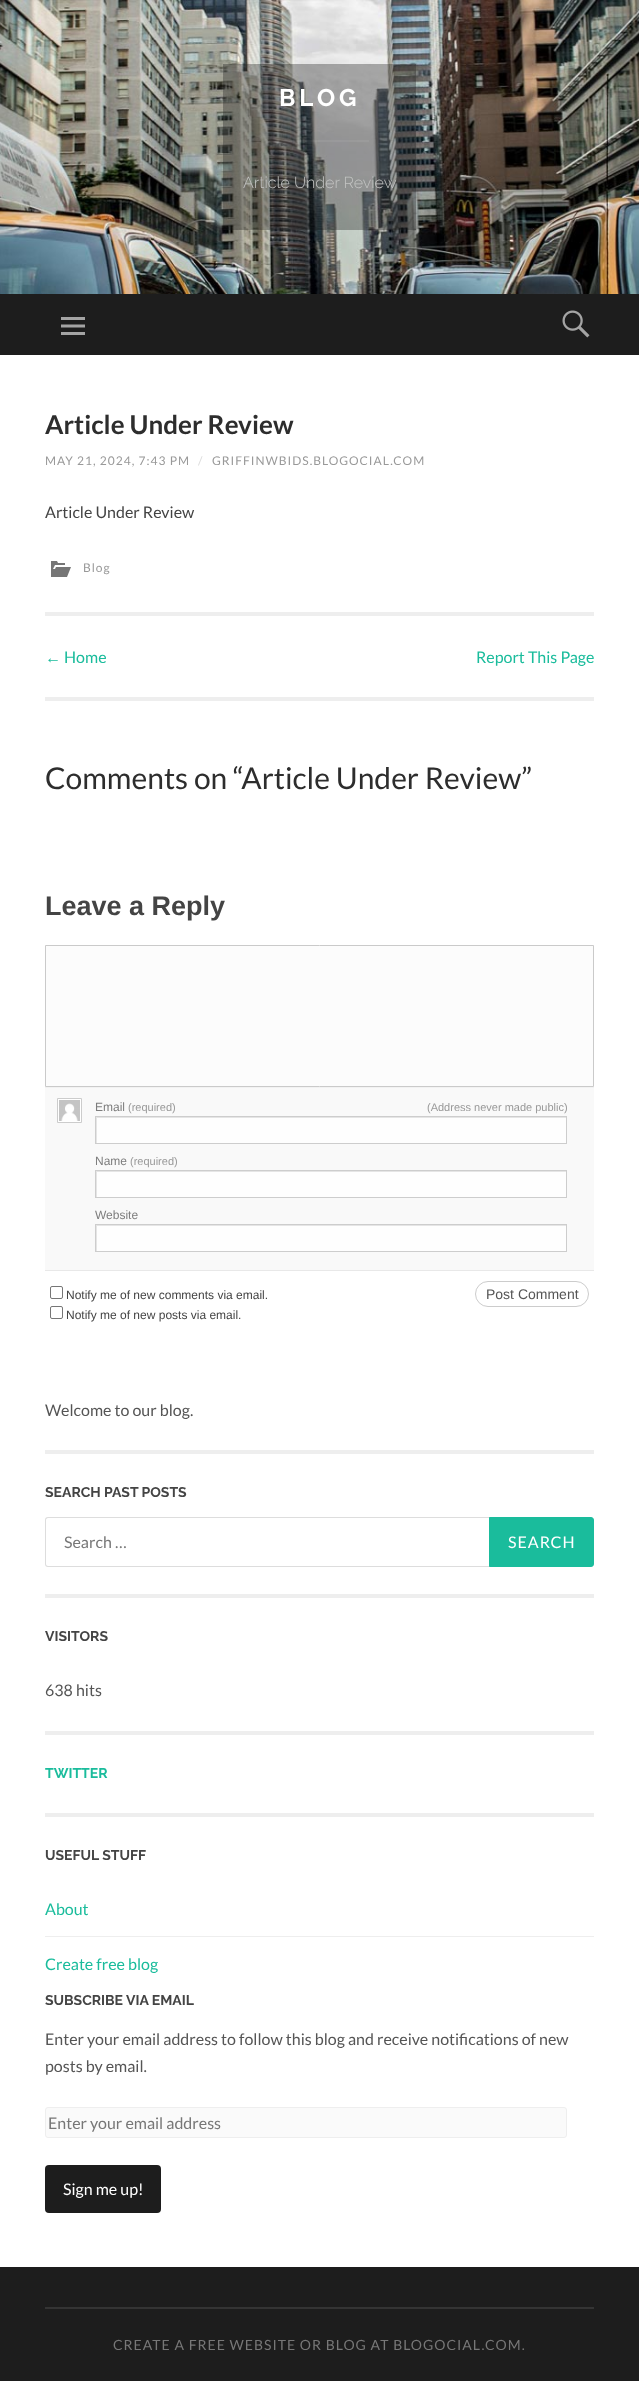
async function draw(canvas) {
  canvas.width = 639;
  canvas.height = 2405;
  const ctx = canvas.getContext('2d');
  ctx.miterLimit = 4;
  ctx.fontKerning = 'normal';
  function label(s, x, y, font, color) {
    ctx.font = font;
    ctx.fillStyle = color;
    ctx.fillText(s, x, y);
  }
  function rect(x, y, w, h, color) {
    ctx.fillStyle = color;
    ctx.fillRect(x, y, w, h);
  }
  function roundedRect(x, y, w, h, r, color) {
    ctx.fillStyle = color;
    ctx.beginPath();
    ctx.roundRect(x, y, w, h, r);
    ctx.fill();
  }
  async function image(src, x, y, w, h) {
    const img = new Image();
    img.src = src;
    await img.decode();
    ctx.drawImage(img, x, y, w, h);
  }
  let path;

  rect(0, 0, 639, 2405, '#fff');
  await image('assets/img1.png', 0, 0, 639, 294);
  rect(223, 64, 193, 166, '#1d1d1d57');
  ctx.letterSpacing = '4px';
  label('BLOG', 279, 106, 'bold 24px Raleway', '#fff');
  rect(269, 140, 100, 2, '#ffffff0f');
  ctx.letterSpacing = '0px';
  label('Article Under Review', 243, 188, '300 16px Raleway', '#c3c4c3');
  rect(0, 294, 639, 61, '#1d1d1d');
  await image('assets/img2.png', 61, 317, 24, 18);
  await image('assets/img3.png', 562, 310, 28, 28);
  label('Article Under Review', 45, 434, 'bold 26px Lato', '#2d2d2d');
  ctx.letterSpacing = '1px';
  label('MAY 21, 2024, 7:43 PM', 45, 465, '12px Lato', '#999');
  label('/', 198, 465, '12px Lato', '#ddd');
  label('GRIFFINWBIDS.BLOGOCIAL.COM', 212, 465, '12px Lato', '#999');
  ctx.letterSpacing = '0px';
  label('Article Under Review', 45, 518, '16px Lato', '#444');
  await image('assets/img4.png', 51, 561, 20, 16);
  ctx.letterSpacing = '1px';
  label('Blog', 83, 572, '12px Lato', '#999');
  rect(45, 612, 549, 4, '#eee');
  rect(45, 697, 549, 4, '#eee');
  ctx.letterSpacing = '0px';
  label('←', 45, 663, '16px Liberation Sans', '#1abc9c');
  label('Home', 64, 663, '16px Lato', '#1abc9c');
  label('Report This Page', 476, 663, '16px Lato', '#1abc9c');
  label('Comments on “Article Under Review”', 45, 789, '30px Lato', '#2d2d2d');
  label('Leave a Reply', 45, 915, 'bold 27px Liberation Sans', '#444');
  ctx.fillStyle = '#fcfcfc';
  ctx.beginPath();
  ctx.rect(45.5, 945.5, 548, 141);
  ctx.fill();
  ctx.strokeStyle = '#cacaca';
  ctx.stroke();
  rect(45, 1087, 549, 1, '#f2f2f2');
  rect(45, 1088, 549, 182, '#f9f9f9');
  rect(45, 1270, 549, 1, '#e8e8e8');
  ctx.fillStyle = '#fff';
  ctx.beginPath();
  ctx.rect(57.5, 1098.5, 24, 24);
  ctx.fill();
  ctx.strokeStyle = '#ccc';
  ctx.stroke();
  await image('assets/img5.png', 59, 1100, 21, 21);
  label('Email', 95, 1111, '12px Liberation Sans', '#7d7d7d');
  label('(required)', 128, 1111, '11px Liberation Sans', '#999');
  label('(Address never made public)', 427, 1111, '11px Liberation Sans', '#999');
  rect(97, 1118, 469, 25, '#fefefe');
  ctx.save();
  ctx.beginPath();
  ctx.rect(96, 1117, 470, 26);
  ctx.clip();
  ctx.fillStyle = '#e5e5e5';
  path = new Path2D('M-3 1018H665V1242H-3ZM97 1118H567V1144H97Z');
  ctx.fill(path, 'evenodd');
  ctx.restore();
  ctx.strokeStyle = '#cdcdcd';
  ctx.strokeRect(95.5, 1116.5, 471, 27);
  label('Name', 95, 1165, '12px Liberation Sans', '#7d7d7d');
  label('(required)', 130, 1165, '11px Liberation Sans', '#999');
  rect(97, 1172, 469, 25, '#fefefe');
  ctx.save();
  ctx.beginPath();
  ctx.rect(96, 1171, 470, 26);
  ctx.clip();
  ctx.fillStyle = '#e5e5e5';
  path = new Path2D('M-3 1072H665V1296H-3ZM97 1172H567V1198H97Z');
  ctx.fill(path, 'evenodd');
  ctx.restore();
  ctx.strokeRect(95.5, 1170.5, 471, 27);
  label('Website', 95, 1219, '12px Liberation Sans', '#7d7d7d');
  rect(97, 1226, 469, 25, '#fefefe');
  ctx.save();
  ctx.beginPath();
  ctx.rect(96, 1225, 470, 26);
  ctx.clip();
  ctx.fillStyle = '#e5e5e5';
  path = new Path2D('M-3 1126H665V1350H-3ZM97 1226H567V1252H97Z');
  ctx.fill(path, 'evenodd');
  ctx.restore();
  ctx.strokeRect(95.5, 1224.5, 471, 27);
  ctx.beginPath();
  ctx.roundRect(50.5, 1286.5, 12, 12, 1.5);
  ctx.strokeStyle = '#767676';
  ctx.stroke();
  label('Notify me of new comments via email.', 66, 1299, '12px Liberation Sans', '#444');
  ctx.beginPath();
  ctx.roundRect(50.5, 1306.5, 12, 12, 1.5);
  ctx.stroke();
  label('Notify me of new posts via email.', 66, 1319, '12px Liberation Sans', '#444');
  ctx.beginPath();
  ctx.roundRect(475.5, 1281.5, 113, 25, 12.5);
  ctx.strokeStyle = '#ccc';
  ctx.stroke();
  label('Post Comment', 486, 1299, '14px Liberation Sans', '#555');
  rect(45, 1450, 549, 4, '#eee');
  label('Welcome to our blog.', 45, 1416, '16px Lato', '#555');
  rect(45, 1594, 549, 4, '#eee');
  label('SEARCH PAST POSTS', 45, 1497, 'bold 14px Raleway', '#444');
  ctx.fillStyle = '#ddd';
  path = new Path2D('M48 1517H589V1567H48C46 1567 45 1566 45 1564V1520C45 1518 46 1517 48 1517ZM48 1518H589V1566H48C47 1566 46 1565 46 1564V1520C46 1519 47 1518 48 1518Z');
  ctx.fill(path, 'evenodd');
  label('Search …', 64, 1548, '16px Lato', '#777');
  ctx.fillStyle = '#1abc9c';
  ctx.beginPath();
  ctx.roundRect(489.5, 1517.5, 104, 49, [0, 2.5, 2.5, 0]);
  ctx.fill();
  ctx.strokeStyle = '#1abc9c';
  ctx.stroke();
  ctx.letterSpacing = '1px';
  label('SEARCH', 508, 1548, '16px Lato', '#fff');
  rect(45, 1731, 549, 4, '#eee');
  ctx.letterSpacing = '0px';
  label('VISITORS', 45, 1641, 'bold 14px Raleway', '#444');
  label('638 hits', 45, 1696, '16px Lato', '#555');
  rect(45, 1813, 549, 4, '#eee');
  label('TWITTER', 45, 1778, 'bold 14px Raleway', '#1abc9c');
  label('USEFUL STUFF', 45, 1860, 'bold 14px Raleway', '#444');
  label('About', 45, 1915, '16px Lato', '#1abc9c');
  rect(45, 1936, 549, 1, '#eee');
  label('Create free blog', 45, 1970, '16px Lato', '#1abc9c');
  label('SUBSCRIBE VIA EMAIL', 45, 2005, 'bold 14px Raleway', '#444');
  label('Enter your email address to follow this blog and receive notifications of new', 45, 2045, '16px Lato', '#555');
  label('posts by email.', 45, 2072, '16px Lato', '#555');
  ctx.fillStyle = '#fafafa';
  ctx.beginPath();
  ctx.roundRect(45.5, 2107.5, 521, 30, 2.5);
  ctx.fill();
  ctx.strokeStyle = '#eee';
  ctx.stroke();
  label('Enter your email address', 48, 2129, '16px Lato', '#777');
  roundedRect(45, 2165, 116, 48, 4, '#1d1d1d');
  label('Sign me up!', 63, 2195, '16px Lato', '#fff');
  rect(0, 2267, 639, 114, '#1d1d1d');
  rect(45, 2307, 549, 2, '#343434');
  ctx.letterSpacing = '1px';
  label('CREATE A FREE WEBSITE OR BLOG AT BLOGOCIAL.COM.', 113, 2350, '14px Lato', '#777');
}

draw(document.querySelector('canvas'));
